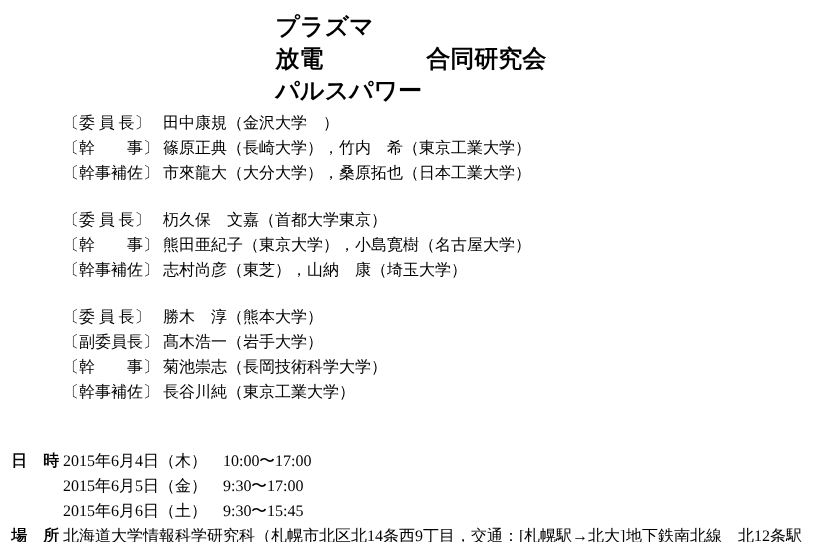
async function draw(canvas) {
  canvas.width = 821;
  canvas.height = 542;
  const ctx = canvas.getContext('2d');
  ctx.miterLimit = 4;
  ctx.fontKerning = 'normal';
  function label(s, x, y, font, color) {
    ctx.font = font;
    ctx.fillStyle = color;
    ctx.fillText(s, x, y);
  }
  function rect(x, y, w, h, color) {
    ctx.fillStyle = color;
    ctx.fillRect(x, y, w, h);
  }

  rect(0, 0, 821, 542, '#fff');
  label('プラズマ', 275, 35, 'bold 24px WenQuanYi Zen Hei', '#000');
  label('放電', 275, 67, 'bold 24px WenQuanYi Zen Hei', '#000');
  label('パルスパワー', 275, 99, 'bold 24px WenQuanYi Zen Hei', '#000');
  label('合同研究会', 426, 67, 'bold 24px WenQuanYi Zen Hei', '#000');
  ctx.wordSpacing = '-1px';
  label('〔委 員 長〕', 63, 128, '500 16px WenQuanYi Zen Hei', '#000');
  ctx.wordSpacing = '0px';
  label('田中康規（金沢大学　）', 163, 128, '500 16px WenQuanYi Zen Hei', '#000');
  label('〔幹　　事〕', 63, 153, '500 16px WenQuanYi Zen Hei', '#000');
  label('篠原正典（長崎大学），竹内　希（東京工業大学）', 163, 153, '500 16px WenQuanYi Zen Hei', '#000');
  label('〔幹事補佐〕', 63, 178, '500 16px WenQuanYi Zen Hei', '#000');
  label('市來龍大（大分大学），桑原拓也（日本工業大学）', 163, 178, '500 16px WenQuanYi Zen Hei', '#000');
  ctx.wordSpacing = '-1px';
  label('〔委 員 長〕', 63, 225, '500 16px WenQuanYi Zen Hei', '#000');
  ctx.wordSpacing = '0px';
  label('杤久保　文嘉（首都大学東京）', 163, 225, '500 16px WenQuanYi Zen Hei', '#000');
  label('〔幹　　事〕', 63, 250, '500 16px WenQuanYi Zen Hei', '#000');
  label('熊田亜紀子（東京大学），小島寛樹（名古屋大学）', 163, 250, '500 16px WenQuanYi Zen Hei', '#000');
  label('〔幹事補佐〕', 63, 275, '500 16px WenQuanYi Zen Hei', '#000');
  label('志村尚彦（東芝），山納　康（埼玉大学）', 163, 275, '500 16px WenQuanYi Zen Hei', '#000');
  ctx.wordSpacing = '-1px';
  label('〔委 員 長〕', 63, 322, '500 16px WenQuanYi Zen Hei', '#000');
  ctx.wordSpacing = '0px';
  label('勝木　淳（熊本大学）', 163, 322, '500 16px WenQuanYi Zen Hei', '#000');
  label('〔副委員長〕', 63, 347, '500 16px WenQuanYi Zen Hei', '#000');
  label('髙木浩一（岩手大学）', 163, 347, '500 16px WenQuanYi Zen Hei', '#000');
  label('〔幹　　事〕', 63, 372, '500 16px WenQuanYi Zen Hei', '#000');
  label('菊池崇志（長岡技術科学大学）', 163, 372, '500 16px WenQuanYi Zen Hei', '#000');
  label('〔幹事補佐〕', 63, 397, '500 16px WenQuanYi Zen Hei', '#000');
  label('長谷川純（東京工業大学）', 163, 397, '500 16px WenQuanYi Zen Hei', '#000');
  label('日　時', 11, 466, 'bold 16px WenQuanYi Zen Hei', '#000');
  label('2015', 63, 466, '16px Liberation Serif', '#000');
  label('年', 95, 466, '500 16px WenQuanYi Zen Hei', '#000');
  label('6', 111, 466, '16px Liberation Serif', '#000');
  label('月', 119, 466, '500 16px WenQuanYi Zen Hei', '#000');
  label('4', 135, 466, '16px Liberation Serif', '#000');
  label('日（木）', 143, 466, '500 16px WenQuanYi Zen Hei', '#000');
  label('10:00', 223, 466, '16px Liberation Serif', '#000');
  label('〜', 259, 466, '500 16px WenQuanYi Zen Hei', '#000');
  label('17:00', 275, 466, '16px Liberation Serif', '#000');
  label('2015', 63, 491, '16px Liberation Serif', '#000');
  label('年', 95, 491, '500 16px WenQuanYi Zen Hei', '#000');
  label('6', 111, 491, '16px Liberation Serif', '#000');
  label('月', 119, 491, '500 16px WenQuanYi Zen Hei', '#000');
  label('5', 135, 491, '16px Liberation Serif', '#000');
  label('日（金）', 143, 491, '500 16px WenQuanYi Zen Hei', '#000');
  label('9:30', 223, 491, '16px Liberation Serif', '#000');
  label('〜', 251, 491, '500 16px WenQuanYi Zen Hei', '#000');
  label('17:00', 267, 491, '16px Liberation Serif', '#000');
  label('2015', 63, 516, '16px Liberation Serif', '#000');
  label('年', 95, 516, '500 16px WenQuanYi Zen Hei', '#000');
  label('6', 111, 516, '16px Liberation Serif', '#000');
  label('月', 119, 516, '500 16px WenQuanYi Zen Hei', '#000');
  label('6', 135, 516, '16px Liberation Serif', '#000');
  label('日（土）', 143, 516, '500 16px WenQuanYi Zen Hei', '#000');
  label('9:30', 223, 516, '16px Liberation Serif', '#000');
  label('〜', 251, 516, '500 16px WenQuanYi Zen Hei', '#000');
  label('15:45', 267, 516, '16px Liberation Serif', '#000');
  label('場　所', 11, 541, 'bold 16px WenQuanYi Zen Hei', '#000');
  label('北海道大学情報科学研究科（札幌市北区北', 63, 541, '500 16px WenQuanYi Zen Hei', '#000');
  label('14', 367, 541, '16px Liberation Serif', '#000');
  label('条西', 383, 541, '500 16px WenQuanYi Zen Hei', '#000');
  label('9', 415, 541, '16px Liberation Serif', '#000');
  label('丁目，交通：', 423, 541, '500 16px WenQuanYi Zen Hei', '#000');
  label('[', 519, 541, '16px Liberation Serif', '#000');
  label('札幌駅', 524, 541, '500 16px WenQuanYi Zen Hei', '#000');
  label('→', 572, 541, '16px Liberation Serif', '#000');
  label('北大', 588, 541, '500 16px WenQuanYi Zen Hei', '#000');
  label(']', 620, 541, '16px Liberation Serif', '#000');
  label('地下鉄南北線　北', 626, 541, '500 16px WenQuanYi Zen Hei', '#000');
  label('12', 754, 541, '16px Liberation Serif', '#000');
  label('条駅', 770, 541, '500 16px WenQuanYi Zen Hei', '#000');
}

draw(document.querySelector('canvas'));
